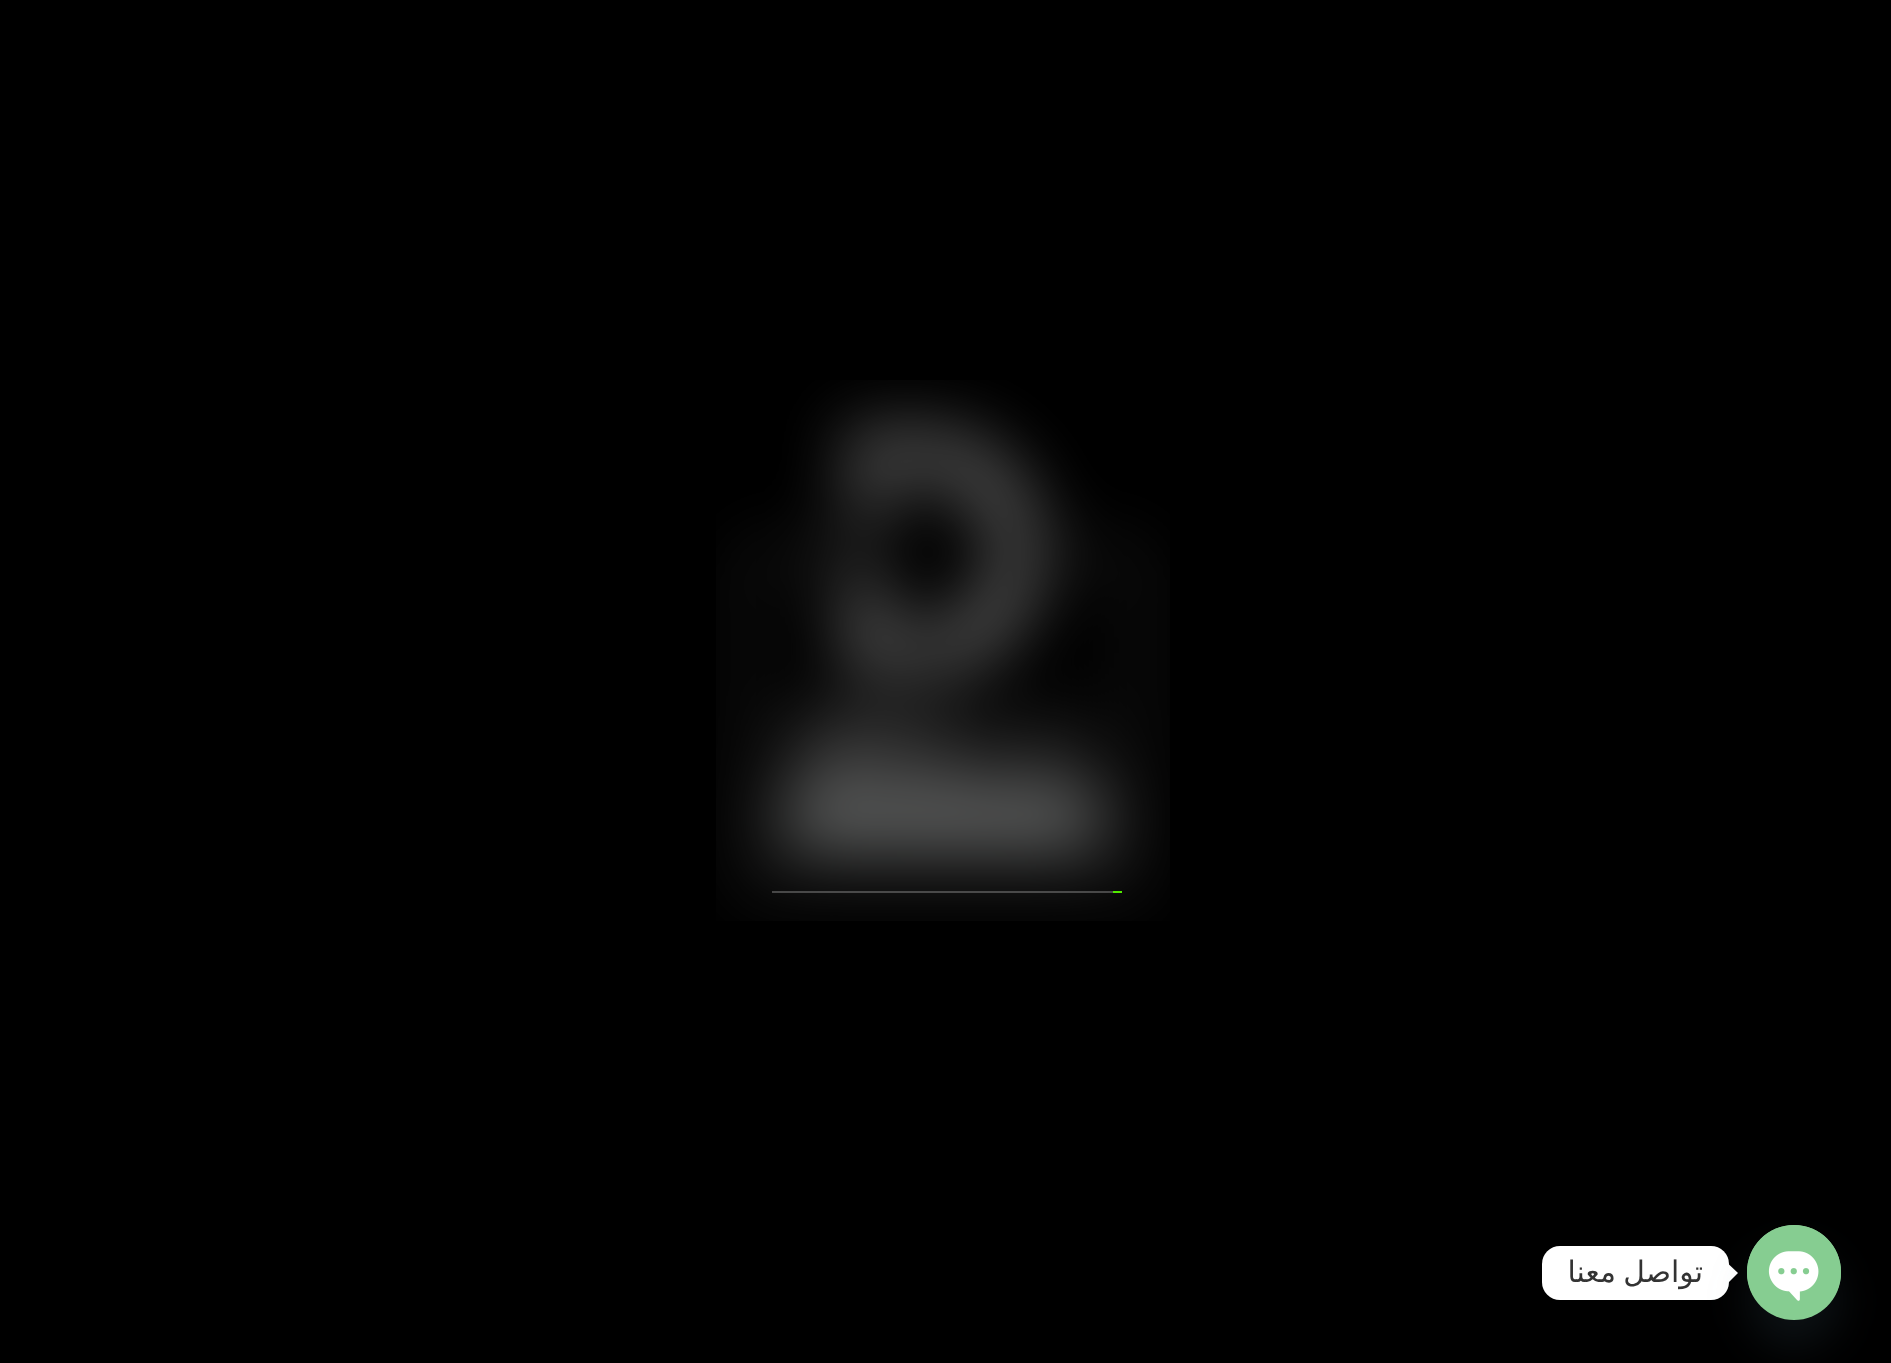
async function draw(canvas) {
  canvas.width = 1891;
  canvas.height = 1363;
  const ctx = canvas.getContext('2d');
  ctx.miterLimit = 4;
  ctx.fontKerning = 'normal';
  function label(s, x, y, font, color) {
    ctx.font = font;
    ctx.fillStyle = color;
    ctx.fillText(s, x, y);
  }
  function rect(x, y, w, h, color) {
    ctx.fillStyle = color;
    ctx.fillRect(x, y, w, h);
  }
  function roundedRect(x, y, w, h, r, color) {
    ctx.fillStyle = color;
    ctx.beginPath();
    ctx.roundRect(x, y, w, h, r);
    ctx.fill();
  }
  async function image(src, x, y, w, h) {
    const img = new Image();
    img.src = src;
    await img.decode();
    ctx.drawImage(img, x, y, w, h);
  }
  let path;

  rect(0, 0, 1891, 1363, '#000');
  await image('assets/img1.png', 716, 380, 454, 541);
  rect(772, 891, 341, 2, '#84848480');
  rect(1113, 891, 9, 2, '#52ea00');
  roundedRect(1542, 1246, 187, 54, 18, '#fff');
  path = new Path2D('M1729 1282V1264.5L1738 1273Z');
  ctx.fill(path);
  ctx.fillStyle = '#49687e29';
  ctx.filter = 'blur(21px)';
  ctx.beginPath();
  ctx.roundRect(1747, 1253, 94, 95, 47);
  ctx.fill();
  ctx.filter = 'none';
  roundedRect(1747, 1225, 94, 95, 47, '#86cd91');
  await image('assets/img2.png', 1747, 1225, 94, 76);
  ctx.wordSpacing = '-2px';
  ctx.direction = 'rtl';
  label('تواصل معنا', 1703, 1282, '29.75px DejaVu Sans', '#333');
}

draw(document.querySelector('canvas'));
